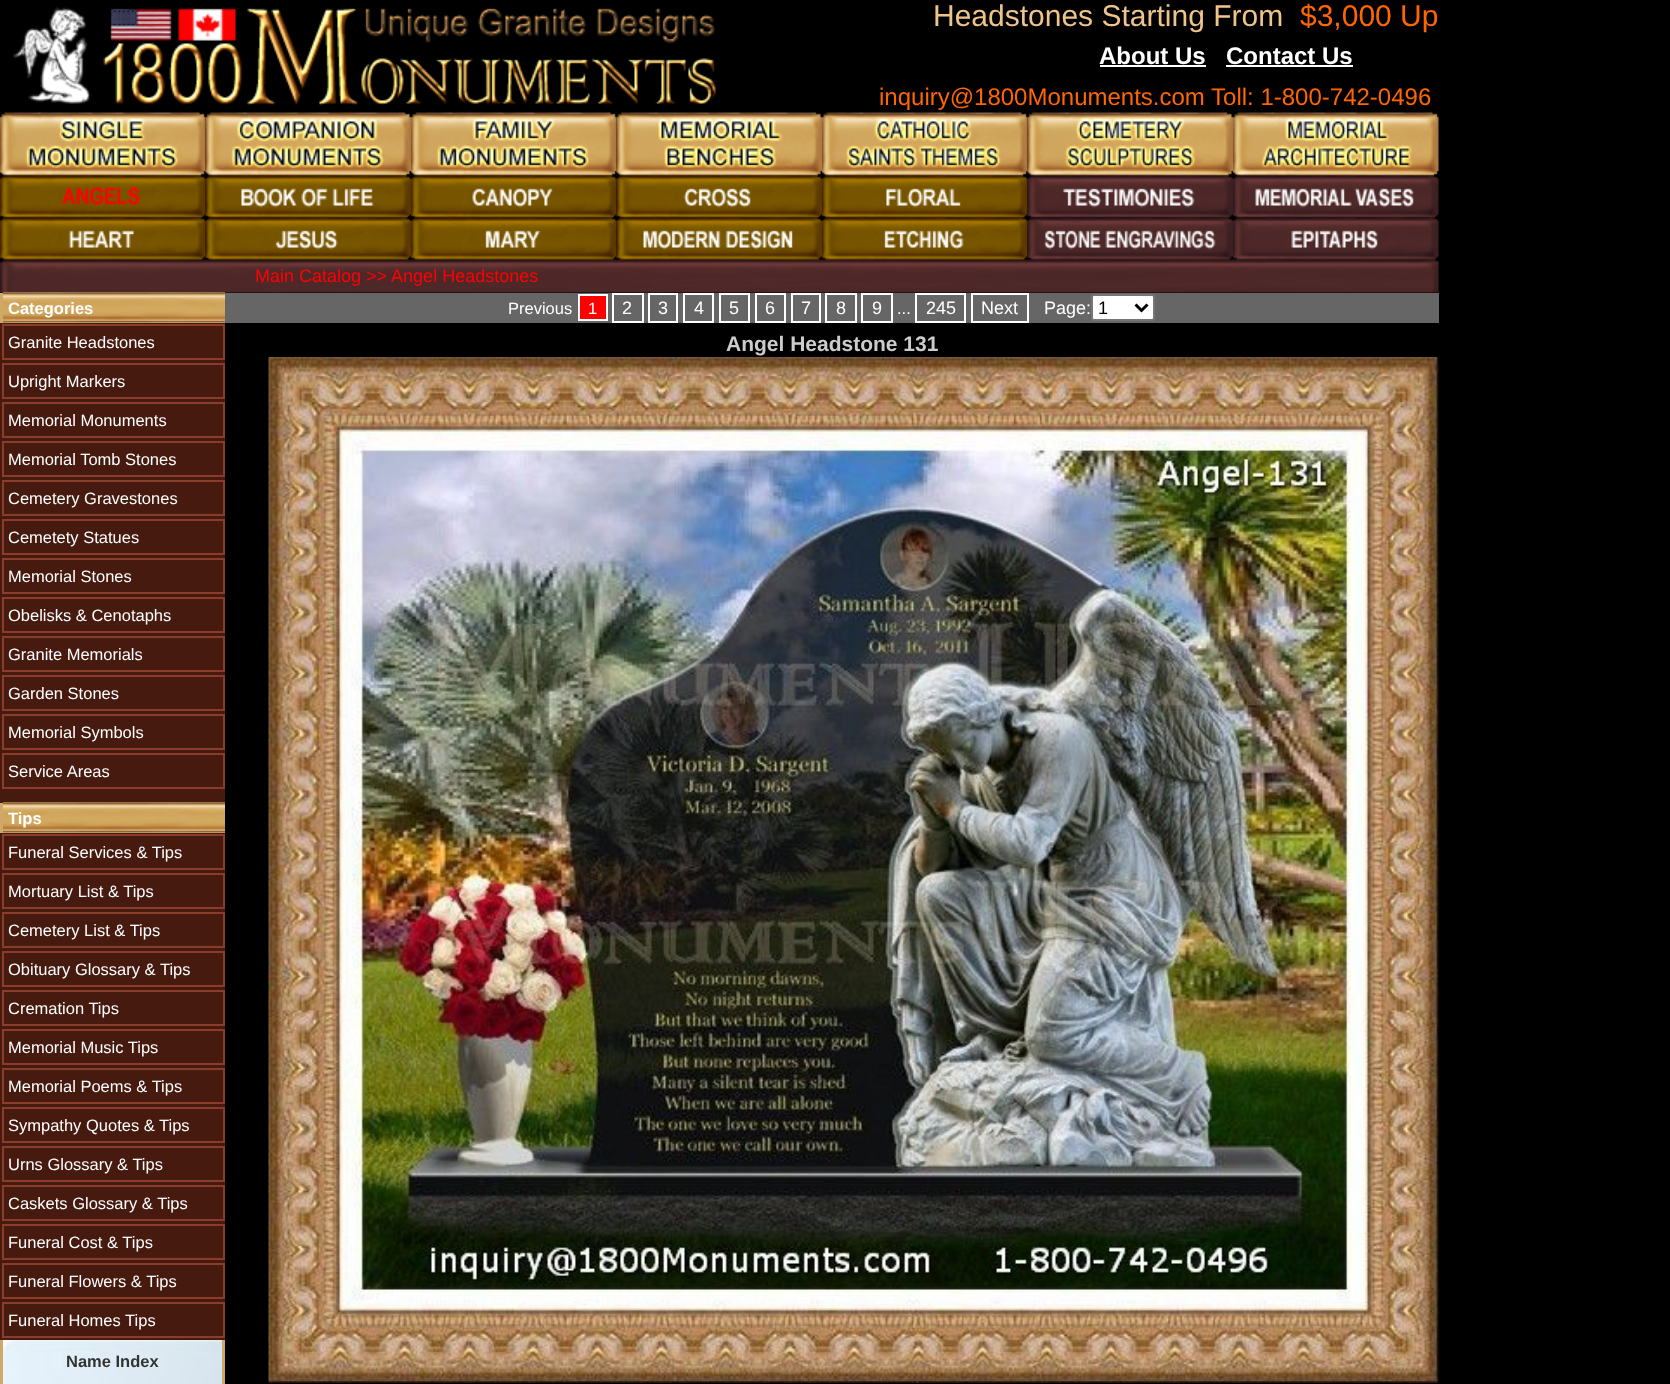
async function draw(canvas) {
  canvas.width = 1670;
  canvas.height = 1384;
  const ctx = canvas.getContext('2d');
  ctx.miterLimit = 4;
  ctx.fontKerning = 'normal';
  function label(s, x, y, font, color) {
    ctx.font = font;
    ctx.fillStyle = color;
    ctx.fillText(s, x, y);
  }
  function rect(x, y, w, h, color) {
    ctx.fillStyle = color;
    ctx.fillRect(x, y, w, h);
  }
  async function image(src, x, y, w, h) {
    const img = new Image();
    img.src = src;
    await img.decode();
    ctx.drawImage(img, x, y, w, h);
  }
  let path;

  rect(0, 0, 1670, 1384, '#000');
  await image('assets/img1.png', 13, 7, 703, 99);
  label('Headstones Starting From', 933, 26, '30px Liberation Sans', '#eec48a');
  label('$3,000 Up', 1300, 26, '30px Liberation Sans', '#f60');
  label('About Us', 1099, 64, 'bold 24px Liberation Sans', '#fff');
  rect(1100, 65, 106, 2, '#fff');
  label('Contact Us', 1226, 64, 'bold 24px Liberation Sans', '#fff');
  rect(1226, 65, 127, 2, '#fff');
  label('inquiry@1800Monuments.com Toll: 1-800-742-0496', 879, 105, '24px Liberation Sans', '#f60');
  await image('assets/img2.png', 0, 112, 206, 64);
  await image('assets/img3.png', 205, 112, 206, 64);
  await image('assets/img4.png', 411, 112, 206, 64);
  await image('assets/img5.png', 616, 112, 206, 64);
  await image('assets/img6.png', 822, 112, 206, 64);
  await image('assets/img7.png', 1027, 112, 206, 64);
  await image('assets/img8.png', 1233, 112, 206, 64);
  await image('assets/img9.png', 0, 175, 206, 43);
  await image('assets/img10.png', 205, 175, 206, 43);
  await image('assets/img11.png', 411, 175, 206, 43);
  await image('assets/img12.png', 616, 175, 206, 43);
  await image('assets/img13.png', 822, 175, 206, 43);
  await image('assets/img14.png', 1027, 175, 206, 43);
  await image('assets/img15.png', 1233, 175, 206, 43);
  await image('assets/img23.png', 0, 259, 1439, 34);
  await image('assets/img16.png', 0, 217, 206, 43);
  await image('assets/img17.png', 205, 217, 206, 43);
  await image('assets/img18.png', 411, 217, 206, 43);
  await image('assets/img19.png', 616, 217, 206, 43);
  await image('assets/img20.png', 822, 217, 206, 43);
  await image('assets/img21.png', 1027, 217, 206, 43);
  await image('assets/img22.png', 1233, 217, 206, 43);
  label('Main Catalog >> Angel Headstones', 255, 282, '18px Liberation Sans', '#f00');
  rect(0, 323, 225, 1017, '#461a0f');
  rect(0, 293, 225, 30, '#d0a968');
  await image('assets/img24.png', 3, 292, 222, 31);
  label('Categories', 8, 314, 'bold 16.5px Liberation Sans', '#fff');
  ctx.strokeStyle = '#893d2a';
  ctx.lineWidth = 2;
  ctx.strokeRect(3, 325, 221, 34);
  label('Granite Headstones', 8, 348, '16.5px Liberation Sans', '#fff');
  ctx.strokeRect(3, 364, 221, 34);
  label('Upright Markers', 8, 387, '16.5px Liberation Sans', '#fff');
  ctx.strokeRect(3, 403, 221, 34);
  label('Memorial Monuments', 8, 426, '16.5px Liberation Sans', '#fff');
  ctx.strokeRect(3, 442, 221, 34);
  label('Memorial Tomb Stones', 8, 465, '16.5px Liberation Sans', '#fff');
  ctx.strokeRect(3, 481, 221, 34);
  label('Cemetery Gravestones', 8, 504, '16.5px Liberation Sans', '#fff');
  ctx.strokeRect(3, 520, 221, 34);
  label('Cemetety Statues', 8, 543, '16.5px Liberation Sans', '#fff');
  ctx.strokeRect(3, 559, 221, 34);
  label('Memorial Stones', 8, 582, '16.5px Liberation Sans', '#fff');
  ctx.strokeRect(3, 598, 221, 34);
  label('Obelisks & Cenotaphs', 8, 621, '16.5px Liberation Sans', '#fff');
  ctx.strokeRect(3, 637, 221, 34);
  label('Granite Memorials', 8, 660, '16.5px Liberation Sans', '#fff');
  ctx.strokeRect(3, 676, 221, 34);
  label('Garden Stones', 8, 699, '16.5px Liberation Sans', '#fff');
  ctx.strokeRect(3, 715, 221, 34);
  label('Memorial Symbols', 8, 738, '16.5px Liberation Sans', '#fff');
  ctx.strokeRect(3, 754, 221, 34);
  label('Service Areas', 8, 777, '16.5px Liberation Sans', '#fff');
  rect(0, 803, 225, 30, '#d0a968');
  await image('assets/img25.png', 3, 802, 222, 31);
  label('Tips', 8, 824, 'bold 16.5px Liberation Sans', '#fff');
  ctx.strokeRect(3, 835, 221, 34);
  label('Funeral Services & Tips', 8, 858, '16.5px Liberation Sans', '#fff');
  ctx.strokeRect(3, 874, 221, 34);
  label('Mortuary List & Tips', 8, 897, '16.5px Liberation Sans', '#fff');
  ctx.strokeRect(3, 913, 221, 34);
  label('Cemetery List & Tips', 8, 936, '16.5px Liberation Sans', '#fff');
  ctx.strokeRect(3, 952, 221, 34);
  label('Obituary Glossary & Tips', 8, 975, '16.5px Liberation Sans', '#fff');
  ctx.strokeRect(3, 991, 221, 34);
  label('Cremation Tips', 8, 1014, '16.5px Liberation Sans', '#fff');
  ctx.strokeRect(3, 1030, 221, 34);
  label('Memorial Music Tips', 8, 1053, '16.5px Liberation Sans', '#fff');
  ctx.strokeRect(3, 1069, 221, 34);
  label('Memorial Poems & Tips', 8, 1092, '16.5px Liberation Sans', '#fff');
  ctx.strokeRect(3, 1108, 221, 34);
  label('Sympathy Quotes & Tips', 8, 1131, '16.5px Liberation Sans', '#fff');
  ctx.strokeRect(3, 1147, 221, 34);
  label('Urns Glossary & Tips', 8, 1170, '16.5px Liberation Sans', '#fff');
  ctx.strokeRect(3, 1186, 221, 34);
  label('Caskets Glossary & Tips', 8, 1209, '16.5px Liberation Sans', '#fff');
  ctx.strokeRect(3, 1225, 221, 34);
  label('Funeral Cost & Tips', 8, 1248, '16.5px Liberation Sans', '#fff');
  ctx.strokeRect(3, 1264, 221, 34);
  label('Funeral Flowers & Tips', 8, 1287, '16.5px Liberation Sans', '#fff');
  ctx.strokeRect(3, 1303, 221, 34);
  label('Funeral Homes Tips', 8, 1326, '16.5px Liberation Sans', '#fff');
  rect(0, 1340, 225, 44, '#d0a968');
  await image('assets/img26.png', 3, 1340, 219, 44);
  label('Name Index', 66, 1367, 'bold 16.5px Liberation Sans', '#333');
  rect(225, 293, 1214, 30, '#666');
  label('Previous', 508, 314, '16.5px Liberation Sans', '#fff');
  ctx.fillStyle = '#f00';
  ctx.beginPath();
  ctx.rect(579, 295, 28, 25);
  ctx.fill();
  ctx.strokeStyle = '#fff';
  ctx.stroke();
  label('1', 588, 314, '16.5px Liberation Sans', '#fff');
  ctx.strokeRect(613, 294, 30, 28);
  label('2', 622, 314, '18px Liberation Sans', '#fff');
  ctx.strokeRect(649, 294, 28, 28);
  label('3', 658, 314, '18px Liberation Sans', '#fff');
  ctx.strokeRect(684, 294, 29, 28);
  label('4', 694, 314, '18px Liberation Sans', '#fff');
  ctx.strokeRect(720, 294, 29, 28);
  label('5', 729, 314, '18px Liberation Sans', '#fff');
  ctx.strokeRect(756, 294, 29, 28);
  label('6', 765, 314, '18px Liberation Sans', '#fff');
  ctx.strokeRect(792, 294, 28, 28);
  label('7', 801, 314, '18px Liberation Sans', '#fff');
  ctx.strokeRect(826, 294, 30, 28);
  label('8', 836, 314, '18px Liberation Sans', '#fff');
  ctx.strokeRect(862, 294, 30, 28);
  label('9', 872, 314, '18px Liberation Sans', '#fff');
  label('...', 897, 314, '16.5px Liberation Sans', '#fff');
  ctx.strokeRect(916, 294, 49, 28);
  label('245', 926, 314, '18px Liberation Sans', '#fff');
  ctx.strokeRect(972, 294, 56, 28);
  label('Next', 981, 314, '18px Liberation Sans', '#fff');
  label('Page:', 1044, 314, '18px Liberation Sans', '#fff');
  ctx.beginPath();
  ctx.roundRect(1092, 295, 62, 25, 2);
  ctx.fill();
  ctx.strokeStyle = '#767676';
  ctx.stroke();
  path = new Path2D('M1135.5 304.5L1141.5 310.5L1147.5 304.5');
  ctx.strokeStyle = '#000';
  ctx.lineWidth = 3;
  ctx.stroke(path);
  label('1', 1098, 314, '18px Liberation Sans', '#000');
  label('Angel Headstone 131', 726, 351, 'bold 21px Liberation Sans', '#ccc');
  await image('assets/img27.png', 268, 357, 1171, 1026);
}

draw(document.querySelector('canvas'));
